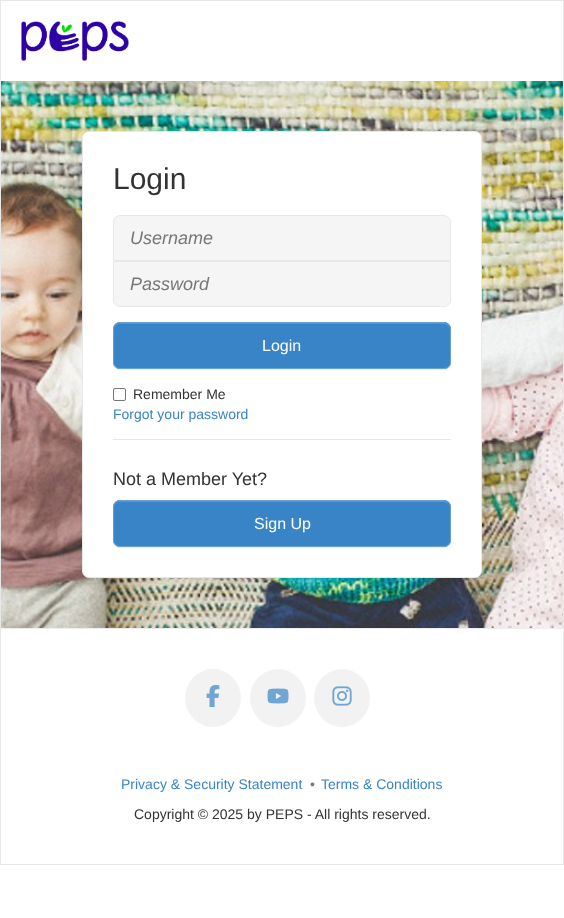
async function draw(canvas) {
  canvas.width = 564;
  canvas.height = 918;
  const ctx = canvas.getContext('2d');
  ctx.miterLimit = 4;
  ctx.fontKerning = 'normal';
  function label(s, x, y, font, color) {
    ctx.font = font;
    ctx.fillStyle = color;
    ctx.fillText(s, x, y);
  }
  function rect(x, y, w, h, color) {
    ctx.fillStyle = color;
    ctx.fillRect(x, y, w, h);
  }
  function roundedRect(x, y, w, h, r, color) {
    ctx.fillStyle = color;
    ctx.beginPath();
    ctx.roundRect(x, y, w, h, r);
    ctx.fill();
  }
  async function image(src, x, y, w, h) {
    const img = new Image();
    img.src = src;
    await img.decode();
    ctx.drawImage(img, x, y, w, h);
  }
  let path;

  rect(0, 0, 564, 918, '#fff');
  ctx.strokeStyle = '#e8e8e8';
  ctx.strokeRect(0.5, 0.5, 563, 864);
  await image('assets/img1.png', 21, 21, 108, 40);
  await image('assets/img2.png', 1, 81, 562, 547);
  ctx.beginPath();
  ctx.roundRect(82.5, 131.5, 399, 446, 6.5);
  ctx.fill();
  ctx.stroke();
  label('Login', 113, 189, '30px Liberation Sans', '#333');
  ctx.fillStyle = '#f5f5f5';
  ctx.beginPath();
  ctx.roundRect(113.5, 215.5, 337, 45, [6.5, 6.5, 0, 0]);
  ctx.fill();
  ctx.stroke();
  label('Username', 130, 244, 'italic 18px Liberation Sans', '#777');
  ctx.fillStyle = '#f5f5f5';
  ctx.beginPath();
  ctx.roundRect(113.5, 261.5, 337, 45, [0, 0, 6.5, 6.5]);
  ctx.fill();
  ctx.stroke();
  label('Password', 130, 290, 'italic 18px Liberation Sans', '#777');
  ctx.fillStyle = '#00000012';
  ctx.filter = 'blur(0.5px)';
  ctx.beginPath();
  ctx.roundRect(113, 323, 338, 47, 7);
  ctx.fill();
  ctx.filter = 'none';
  roundedRect(113, 322, 338, 47, 7, '#3884c7');
  ctx.fillStyle = '#5696cf';
  path = new Path2D('M120 324H444C447 324 450 327 450 330V329C450 326 447 323 444 323H120C117 323 114 326 114 329V330C114 327 117 324 120 324Z');
  ctx.fill(path);
  ctx.beginPath();
  ctx.roundRect(113.5, 322.5, 337, 46, 6.5);
  ctx.strokeStyle = '#68a2d4';
  ctx.stroke();
  label('Login', 262, 351, '16px Liberation Sans', '#fff');
  ctx.beginPath();
  ctx.roundRect(113.5, 388.5, 12, 12, 1.5);
  ctx.strokeStyle = '#767676';
  ctx.stroke();
  label('Remember Me', 133, 399, '14px Liberation Sans', '#333');
  label('Forgot your password', 113, 419, '14px Liberation Sans', '#3884c7');
  rect(113, 439, 338, 1, '#e8e8e8');
  label('Not a Member Yet?', 113, 485, '18px Liberation Sans', '#333');
  ctx.fillStyle = '#00000012';
  ctx.filter = 'blur(0.5px)';
  ctx.beginPath();
  ctx.roundRect(113, 501, 338, 47, 7);
  ctx.fill();
  ctx.filter = 'none';
  roundedRect(113, 500, 338, 47, 7, '#3884c7');
  ctx.fillStyle = '#5696cf';
  path = new Path2D('M120 502H444C447 502 450 505 450 508V507C450 504 447 501 444 501H120C117 501 114 504 114 507V508C114 505 117 502 120 502Z');
  ctx.fill(path);
  ctx.beginPath();
  ctx.roundRect(113.5, 500.5, 337, 46, 6.5);
  ctx.strokeStyle = '#68a2d4';
  ctx.stroke();
  label('Sign Up', 254, 529, '16px Liberation Sans', '#fff');
  rect(1, 628, 562, 1, '#ededed');
  ctx.fillStyle = '#f2f2f2';
  ctx.beginPath();
  ctx.ellipse(213, 698, 28, 29, 0, 0, 2 * Math.PI);
  ctx.fill();
  await image('assets/img3.png', 206, 685, 14, 22);
  ctx.beginPath();
  ctx.ellipse(278, 698, 28, 29, 0, 0, 2 * Math.PI);
  ctx.fill();
  await image('assets/img4.png', 267, 688, 22, 16);
  ctx.beginPath();
  ctx.ellipse(342, 698, 28, 29, 0, 0, 2 * Math.PI);
  ctx.fill();
  await image('assets/img5.png', 332, 686, 20, 20);
  label('Privacy & Security Statement', 121, 789, '14px Liberation Sans', '#3884c7');
  label('•', 310, 789, '14px Liberation Sans', '#777');
  label('Terms & Conditions', 321, 789, '14px Liberation Sans', '#3884c7');
  label('Copyright © 2025 by PEPS - All rights reserved.', 134, 819, '14px Liberation Sans', '#333');
}

draw(document.querySelector('canvas'));
